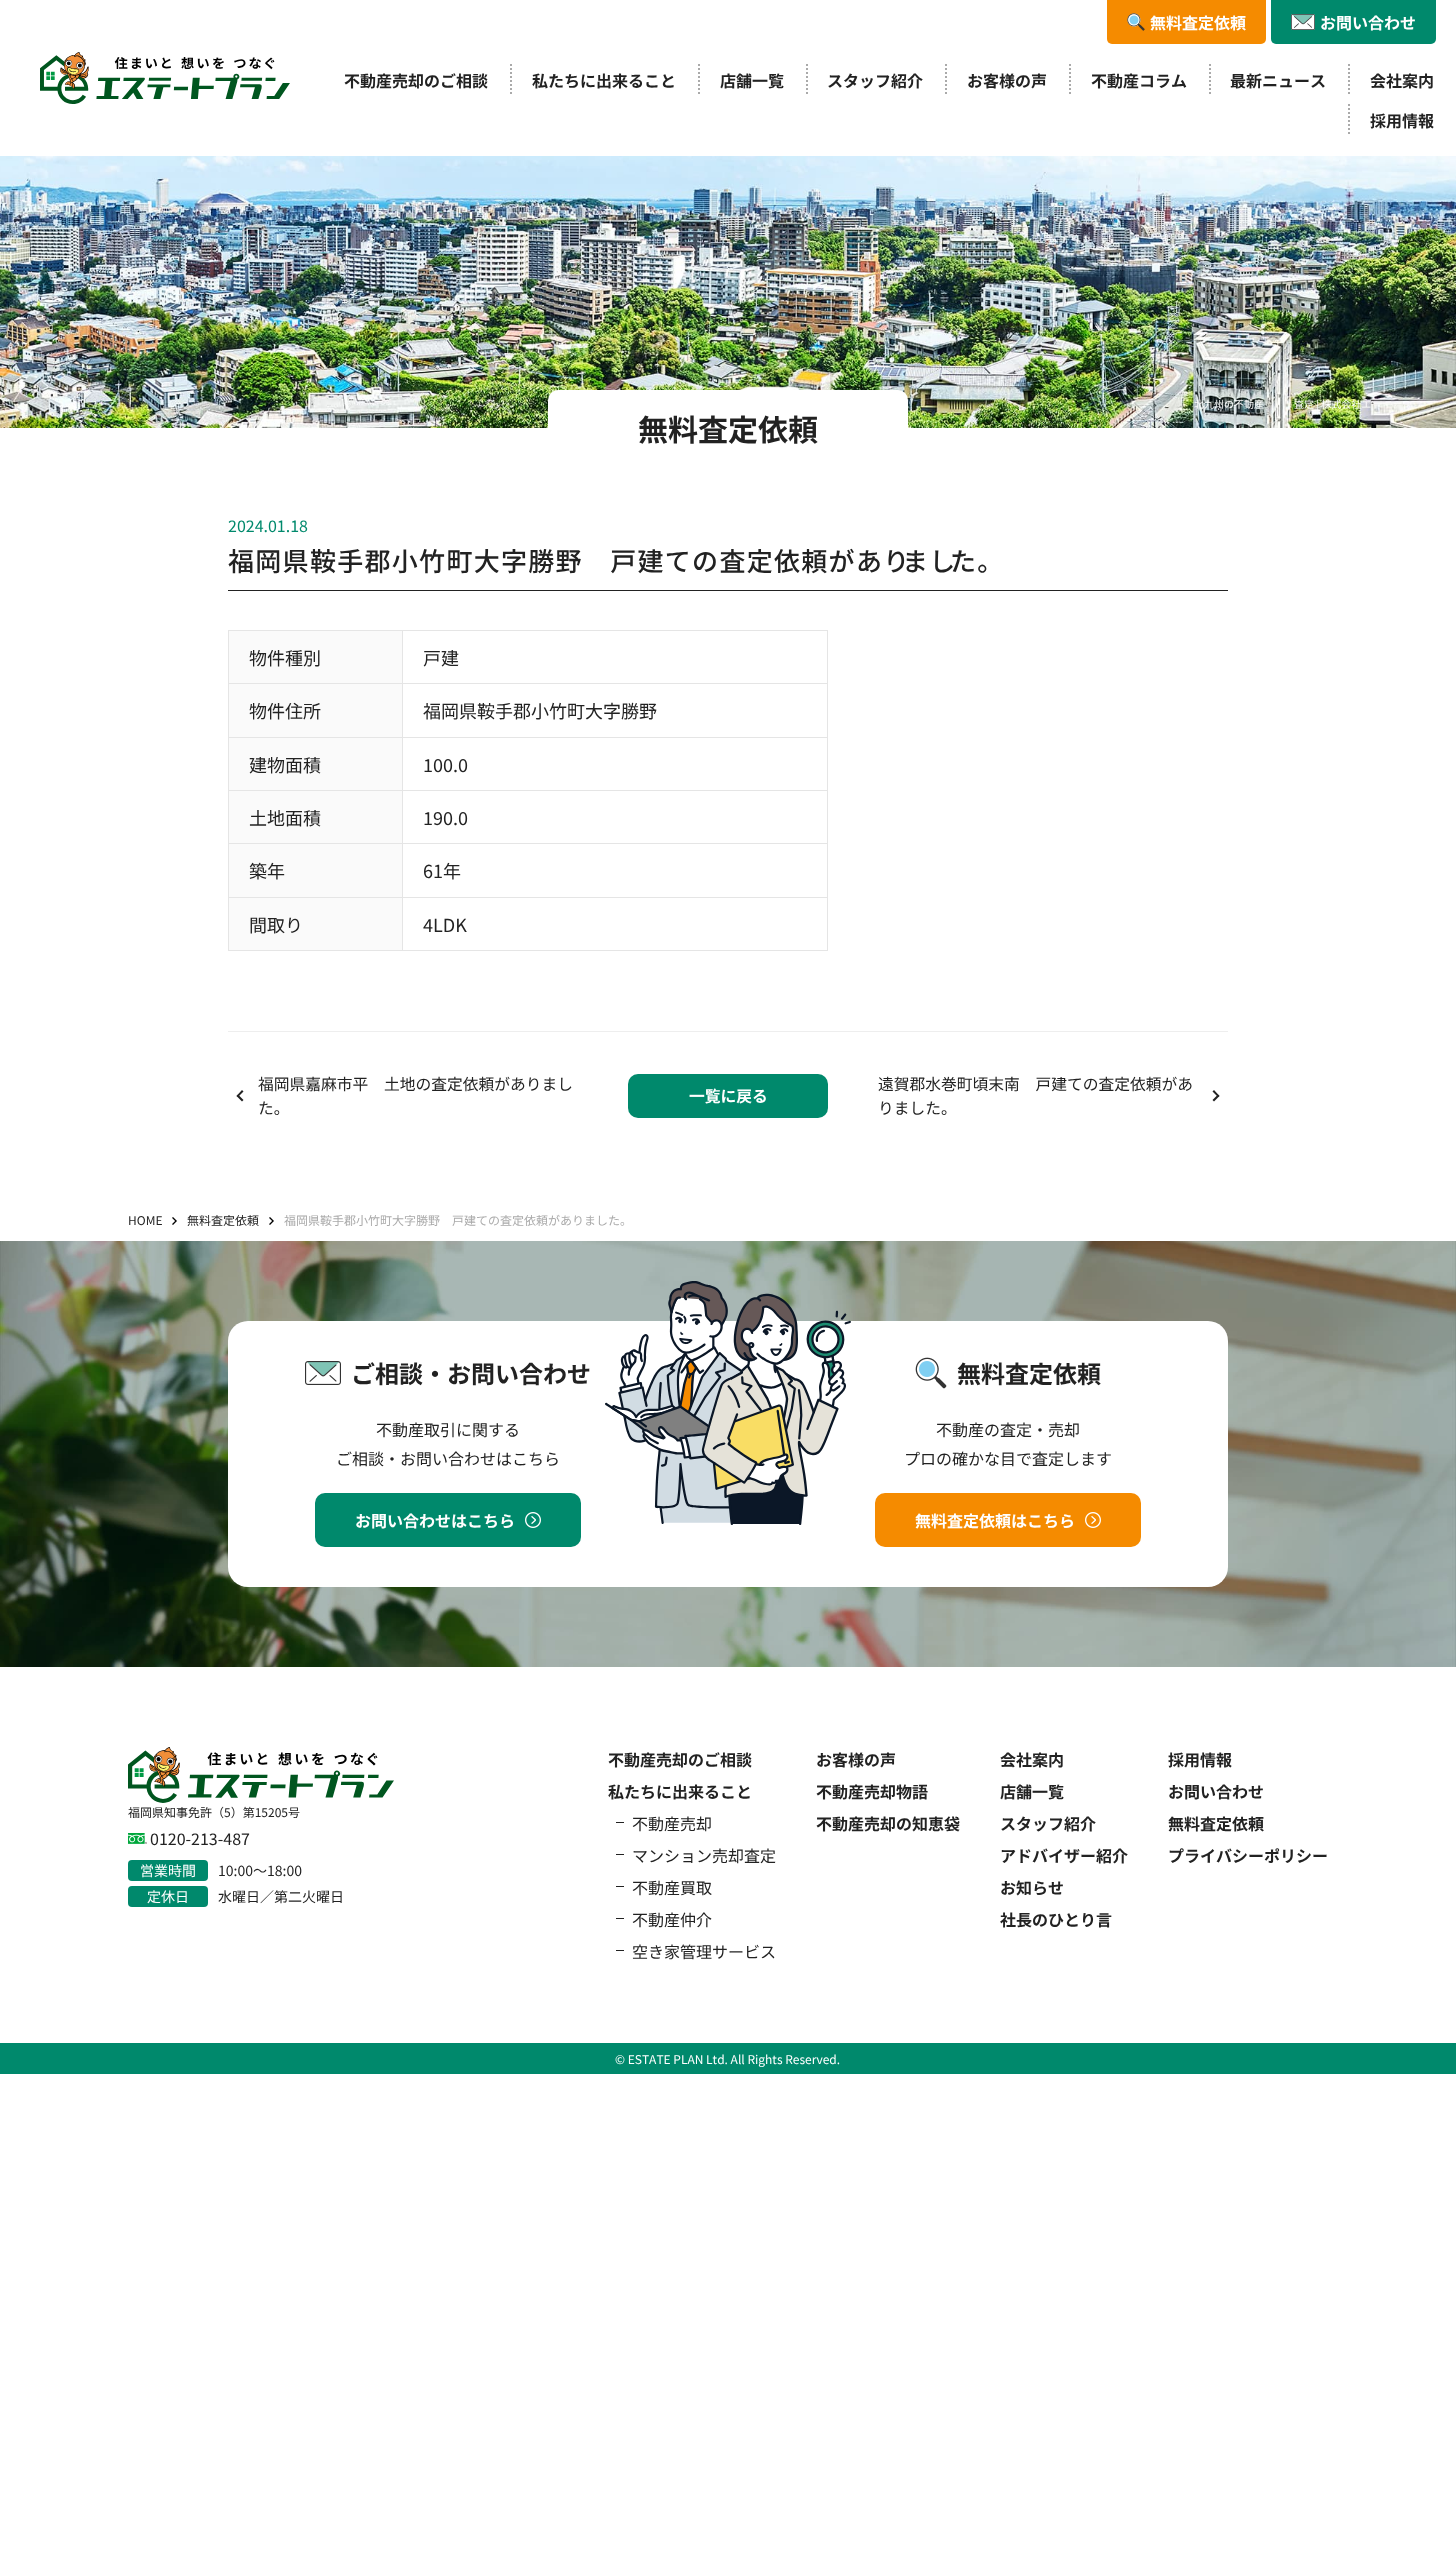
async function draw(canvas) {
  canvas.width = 1456;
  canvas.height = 2549;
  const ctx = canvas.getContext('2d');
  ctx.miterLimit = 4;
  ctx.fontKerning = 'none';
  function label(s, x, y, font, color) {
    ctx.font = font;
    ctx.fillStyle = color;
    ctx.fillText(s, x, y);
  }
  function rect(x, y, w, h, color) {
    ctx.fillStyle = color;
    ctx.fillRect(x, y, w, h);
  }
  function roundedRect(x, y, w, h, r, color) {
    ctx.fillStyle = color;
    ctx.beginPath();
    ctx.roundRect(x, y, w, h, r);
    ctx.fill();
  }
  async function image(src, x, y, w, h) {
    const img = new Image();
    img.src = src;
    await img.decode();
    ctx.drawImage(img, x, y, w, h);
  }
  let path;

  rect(0, 0, 1456, 2549, '#fff');
  await image('assets/img1.png', 40, 52, 250, 52);
  ctx.fillStyle = '#f58b00';
  ctx.beginPath();
  ctx.roundRect(1107, 0, 159, 44, [0, 0, 5, 5]);
  ctx.fill();
  await image('assets/img2.png', 1127, 13, 18, 18);
  label('無料査定依頼', 1150, 29, 'bold 16px Noto Sans JP', '#fff');
  ctx.fillStyle = '#00896c';
  ctx.beginPath();
  ctx.roundRect(1271, 0, 165, 44, [0, 0, 5, 5]);
  ctx.fill();
  await image('assets/img3.png', 1291, 14, 24, 16);
  label('お問い合わせ', 1320, 29, 'bold 16px Noto Sans JP', '#fff');
  label('不動産売却のご相談', 344, 87, 'bold 16px Noto Sans JP', '#222');
  await image('assets/img4.png', 510, 64, 2, 30);
  label('私たちに出来ること', 532, 87, 'bold 16px Noto Sans JP', '#222');
  await image('assets/img4.png', 698, 64, 2, 30);
  label('店舗一覧', 720, 87, 'bold 16px Noto Sans JP', '#222');
  await image('assets/img4.png', 806, 64, 2, 30);
  label('スタッフ紹介', 827, 87, 'bold 16px Noto Sans JP', '#222');
  await image('assets/img4.png', 945, 64, 2, 30);
  label('お客様の声', 967, 87, 'bold 16px Noto Sans JP', '#222');
  await image('assets/img4.png', 1069, 64, 2, 30);
  label('不動産コラム', 1091, 87, 'bold 16px Noto Sans JP', '#222');
  await image('assets/img4.png', 1209, 64, 2, 30);
  label('最新ニュース', 1230, 87, 'bold 16px Noto Sans JP', '#222');
  await image('assets/img4.png', 1348, 64, 2, 30);
  label('会社案内', 1370, 87, 'bold 16px Noto Sans JP', '#222');
  await image('assets/img4.png', 1348, 104, 2, 30);
  label('採用情報', 1370, 127, 'bold 16px Noto Sans JP', '#222');
  await image('assets/img5.png', 0, 156, 1456, 272);
  label('北九州の不動産', 1194, 408, '10px Noto Sans JP', '#fff');
  label('査定 | 株式会社エ', 1294, 408, '10px Noto Sans JP', '#fff');
  roundedRect(548, 390, 360, 76, 10, '#fff');
  label('無料査定依頼', 638, 441, 'bold 30px Noto Sans JP', '#222');
  label('2024.01.18', 228, 532, '16px Noto Sans JP', '#00896c');
  rect(228, 590, 1000, 1, '#222');
  ctx.letterSpacing = '1.3px';
  label('福岡県鞍手郡小竹町大字勝野　戸建ての査定依頼があり', 228, 571, '500 26px Noto Sans JP', '#222');
  label('まし', 902, 571, '500 26px Noto Sans JP', '#222');
  label('た。', 950, 571, '500 26px Noto Sans JP', '#222');
  rect(229, 631, 173, 52, '#fafafa');
  rect(402, 630, 426, 1, '#e5e5e5');
  rect(402, 683, 426, 1, '#e5e5e5');
  rect(402, 737, 426, 1, '#e5e5e5');
  rect(402, 790, 426, 1, '#e5e5e5');
  rect(402, 843, 426, 1, '#e5e5e5');
  rect(402, 897, 426, 1, '#e5e5e5');
  rect(827, 897, 1, 54, '#e5e5e5');
  rect(402, 950, 426, 1, '#e5e5e5');
  rect(402, 897, 1, 54, '#e5e5e5');
  rect(228, 897, 175, 1, '#e5e5e5');
  rect(402, 843, 1, 55, '#e5e5e5');
  rect(228, 843, 175, 1, '#e5e5e5');
  rect(402, 790, 1, 54, '#e5e5e5');
  rect(228, 790, 175, 1, '#e5e5e5');
  rect(402, 737, 1, 54, '#e5e5e5');
  rect(228, 737, 175, 1, '#e5e5e5');
  rect(402, 683, 1, 55, '#e5e5e5');
  rect(228, 683, 175, 1, '#e5e5e5');
  rect(402, 630, 1, 54, '#e5e5e5');
  rect(228, 630, 175, 1, '#e5e5e5');
  rect(228, 950, 175, 1, '#e5e5e5');
  rect(228, 897, 1, 54, '#e5e5e5');
  rect(228, 843, 1, 55, '#e5e5e5');
  rect(228, 790, 1, 54, '#e5e5e5');
  rect(228, 737, 1, 54, '#e5e5e5');
  rect(228, 683, 1, 55, '#e5e5e5');
  rect(228, 630, 1, 54, '#e5e5e5');
  ctx.letterSpacing = '0px';
  label('物件種別', 249, 665, '18px Noto Sans JP', '#222');
  rect(827, 843, 1, 55, '#e5e5e5');
  rect(827, 790, 1, 54, '#e5e5e5');
  rect(827, 737, 1, 54, '#e5e5e5');
  rect(827, 683, 1, 55, '#e5e5e5');
  rect(827, 630, 1, 54, '#e5e5e5');
  label('戸建', 423, 665, '18px Noto Sans JP', '#222');
  rect(229, 684, 173, 53, '#fafafa');
  label('物件住所', 249, 718, '18px Noto Sans JP', '#222');
  label('福岡県鞍手郡小竹町大字勝野', 423, 718, '18px Noto Sans JP', '#222');
  rect(229, 738, 173, 52, '#fafafa');
  label('建物面積', 249, 772, '18px Noto Sans JP', '#222');
  label('100.0', 423, 772, '18px Noto Sans JP', '#222');
  rect(229, 791, 173, 52, '#fafafa');
  label('土地面積', 249, 825, '18px Noto Sans JP', '#222');
  label('190.0', 423, 825, '18px Noto Sans JP', '#222');
  rect(229, 844, 173, 53, '#fafafa');
  label('築年', 249, 878, '18px Noto Sans JP', '#222');
  label('61年', 423, 878, '18px Noto Sans JP', '#222');
  rect(229, 898, 173, 52, '#fafafa');
  label('間取り', 249, 932, '18px Noto Sans JP', '#222');
  label('4LDK', 423, 932, '18px Noto Sans JP', '#222');
  rect(228, 1031, 1000, 1, '#eee');
  ctx.fillStyle = '#222';
  path = new Path2D('M236.5 1096L242 1090L243.5 1091.5L238 1097Z');
  ctx.fill(path);
  path = new Path2D('M236.5 1096L238 1094.5L243.5 1100L242 1101.5Z');
  ctx.fill(path);
  label('福岡県嘉麻市平　土地の査定依頼がありまし', 258, 1090, '15.75px Noto Sans JP', '#222');
  label('た。', 258, 1114, '15.75px Noto Sans JP', '#222');
  roundedRect(628, 1074, 200, 44, 10, '#00896c');
  label('一覧に戻る', 689, 1102, 'bold 15.75px Noto Sans JP', '#fff');
  label('遠賀郡水巻町頃末南　戸建ての査定依頼があ', 878, 1090, '15.75px Noto Sans JP', '#222');
  label('りました。', 878, 1114, '15.75px Noto Sans JP', '#222');
  path = new Path2D('M1214 1090L1219.5 1096L1218 1097L1212.5 1091.5Z');
  ctx.fill(path);
  path = new Path2D('M1218 1094.5L1219.5 1096L1214 1101.5L1212.5 1100Z');
  ctx.fill(path);
  label('HOME', 128, 1225, '12px Noto Sans JP', '#222');
  await image('assets/img6.png', 172, 1217, 5, 8);
  label('無料査定依頼', 187, 1225, '12px Noto Sans JP', '#222');
  await image('assets/img6.png', 269, 1217, 5, 8);
  label('福岡県鞍手郡小竹町大字勝野　戸建ての査定依頼がありました。', 284, 1225, '12px Noto Sans JP', '#aaa');
  await image('assets/img7.png', 0, 1241, 1456, 426);
  roundedRect(228, 1321, 1000, 266, 20, '#fff');
  await image('assets/img8.png', 305, 1361, 36, 24);
  label('ご相談・お問い合わせ', 351, 1383, 'bold 24px Noto Sans JP', '#222');
  label('不動産取引に関する', 376, 1436, '16px Noto Sans JP', '#222');
  label('ご相談・お問い合わせはこちら', 336, 1465, '16px Noto Sans JP', '#222');
  roundedRect(315, 1493, 266, 54, 10, '#00896c');
  label('お問い合わせはこちら', 355, 1527, 'bold 16px Noto Sans JP', '#fff');
  await image('assets/img9.png', 525, 1512, 16, 16);
  await image('assets/img10.png', 605, 1281, 246, 244);
  await image('assets/img11.png', 915, 1357, 32, 32);
  label('無料査定依頼', 957, 1383, 'bold 24px Noto Sans JP', '#222');
  label('不動産の査定・売却', 936, 1436, '16px Noto Sans JP', '#222');
  label('プロの確かな目で査定します', 904, 1465, '16px Noto Sans JP', '#222');
  roundedRect(875, 1493, 266, 54, 10, '#f58b00');
  label('無料査定依頼はこちら', 915, 1527, 'bold 16px Noto Sans JP', '#fff');
  await image('assets/img12.png', 1085, 1512, 16, 16);
  await image('assets/img13.png', 128, 1747, 266, 56);
  label('福岡県知事免許（5）第15205号', 128, 1817, '12px Noto Sans JP', '#222');
  await image('assets/img14.png', 128, 1833, 19, 11);
  label('0120-213-487', 150, 1845, '16px Noto Sans JP', '#222');
  roundedRect(128, 1860, 80, 21, 4, '#00896c');
  label('営業時間', 140, 1876, '14px Noto Sans JP', '#fff');
  label('10:00〜18:00', 218, 1876, '14px Noto Sans JP', '#222');
  roundedRect(128, 1886, 80, 21, 4, '#00896c');
  label('定休日', 147, 1902, '14px Noto Sans JP', '#fff');
  label('水曜日／第二火曜日', 218, 1902, '14px Noto Sans JP', '#222');
  label('不動産売却のご相談', 608, 1766, 'bold 16px Noto Sans JP', '#222');
  label('私たちに出来ること', 608, 1798, 'bold 16px Noto Sans JP', '#222');
  rect(616, 1822, 8, 1, '#222');
  label('不動産売却', 632, 1830, '16px Noto Sans JP', '#222');
  rect(616, 1854, 8, 1, '#222');
  label('マンション売却査定', 632, 1862, '16px Noto Sans JP', '#222');
  rect(616, 1886, 8, 1, '#222');
  label('不動産買取', 632, 1894, '16px Noto Sans JP', '#222');
  rect(616, 1918, 8, 1, '#222');
  label('不動産仲介', 632, 1926, '16px Noto Sans JP', '#222');
  rect(616, 1950, 8, 1, '#222');
  label('空き家管理サービス', 632, 1958, '16px Noto Sans JP', '#222');
  label('お客様の声', 816, 1766, 'bold 16px Noto Sans JP', '#222');
  label('不動産売却物語', 816, 1798, 'bold 16px Noto Sans JP', '#222');
  label('不動産売却の知恵袋', 816, 1830, 'bold 16px Noto Sans JP', '#222');
  label('会社案内', 1000, 1766, 'bold 16px Noto Sans JP', '#222');
  label('店舗一覧', 1000, 1798, 'bold 16px Noto Sans JP', '#222');
  label('スタッフ紹介', 1000, 1830, 'bold 16px Noto Sans JP', '#222');
  label('アドバイザー紹介', 1000, 1862, 'bold 16px Noto Sans JP', '#222');
  label('お知らせ', 1000, 1894, 'bold 16px Noto Sans JP', '#222');
  label('社長のひとり言', 1000, 1926, 'bold 16px Noto Sans JP', '#222');
  label('採用情報', 1168, 1766, 'bold 16px Noto Sans JP', '#222');
  label('お問い合わせ', 1168, 1798, 'bold 16px Noto Sans JP', '#222');
  label('無料査定依頼', 1168, 1830, 'bold 16px Noto Sans JP', '#222');
  label('プライバシーポリシー', 1168, 1862, 'bold 16px Noto Sans JP', '#222');
  rect(0, 2043, 1456, 31, '#00896c');
  label('© ESTATE PLAN Ltd. All Rights Reserved.', 615, 2064, '12px Noto Sans JP', '#fff');
}

draw(document.querySelector('canvas'));
